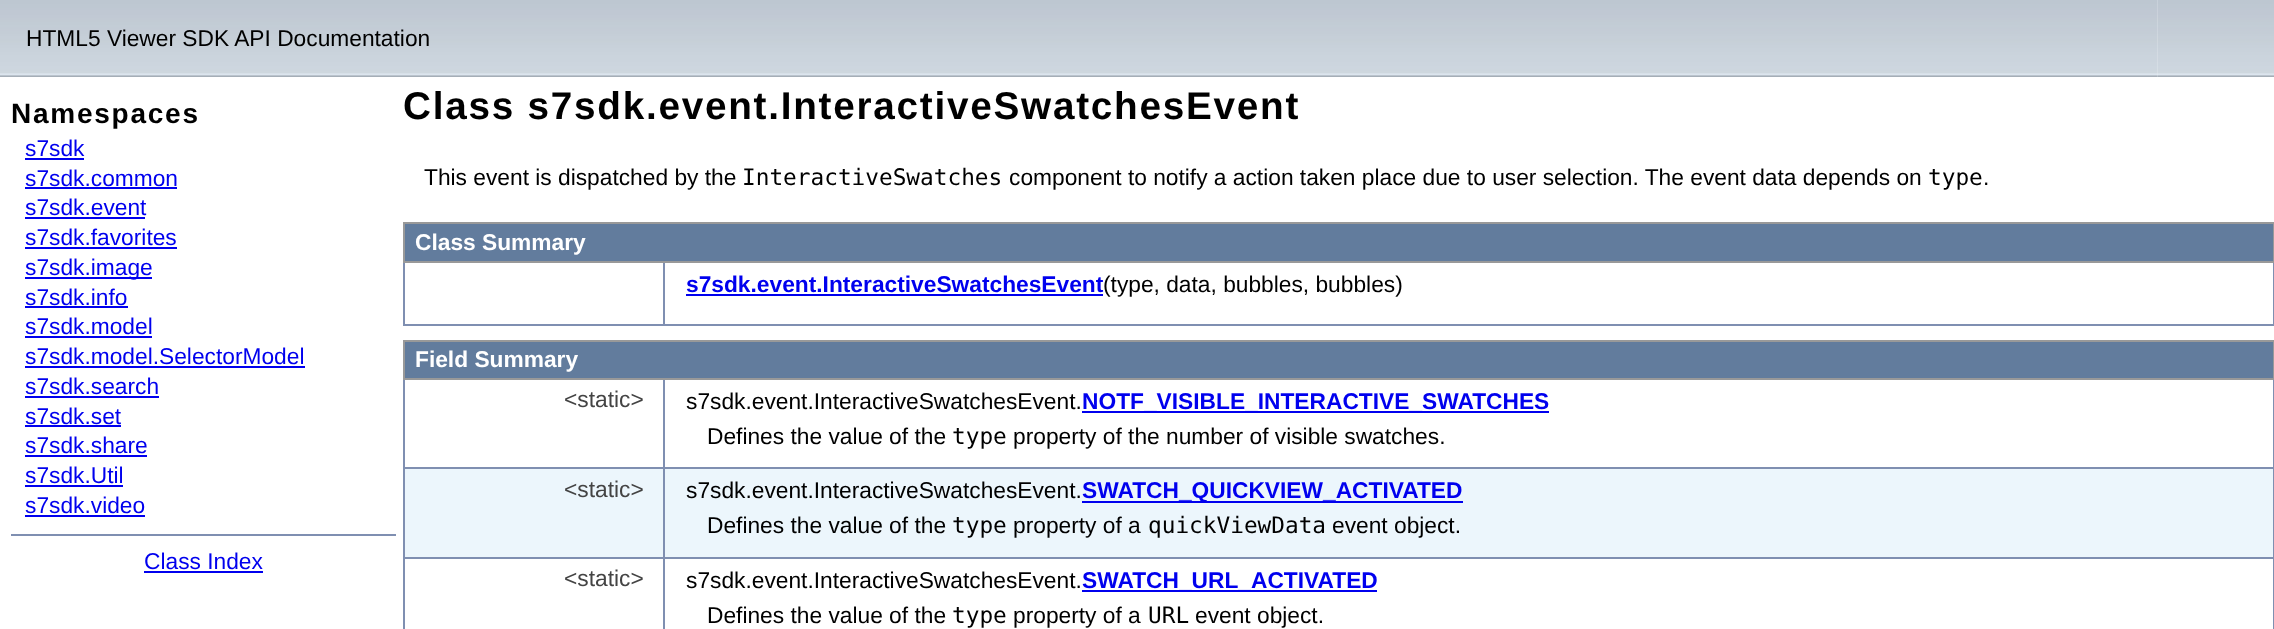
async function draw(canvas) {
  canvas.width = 2274;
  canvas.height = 629;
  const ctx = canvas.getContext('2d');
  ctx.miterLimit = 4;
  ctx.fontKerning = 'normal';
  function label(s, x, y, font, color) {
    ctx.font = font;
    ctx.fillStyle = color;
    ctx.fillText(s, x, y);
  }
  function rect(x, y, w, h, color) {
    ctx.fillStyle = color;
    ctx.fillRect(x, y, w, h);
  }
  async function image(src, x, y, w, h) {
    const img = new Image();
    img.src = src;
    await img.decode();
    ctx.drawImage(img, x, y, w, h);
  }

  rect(0, 0, 2274, 629, '#fff');
  await image('assets/img1.png', 0, 0, 2158, 77);
  label('HTML5 Viewer SDK API Documentation', 26, 46, '22.75px Liberation Sans', '#000');
  await image('assets/img2.png', 2157, 0, 117, 77);
  ctx.letterSpacing = '1.75px';
  label('Namespaces', 11, 123, 'bold 28px Liberation Sans', '#000');
  ctx.letterSpacing = '0px';
  label('s7sdk', 25, 156, '22.75px Liberation Sans', '#00e');
  rect(25, 158, 59, 2, '#00e');
  label('s7sdk.common', 25, 186, '22.75px Liberation Sans', '#00e');
  rect(25, 187, 152, 2, '#00e');
  label('s7sdk.event', 25, 215, '22.75px Liberation Sans', '#00e');
  rect(25, 217, 120, 2, '#00e');
  label('s7sdk.favorites', 25, 245, '22.75px Liberation Sans', '#00e');
  rect(25, 247, 152, 2, '#00e');
  rect(25, 277, 127, 2, '#00e');
  label('s7sdk.image', 25, 275, '22.75px Liberation Sans', '#00e');
  label('s7sdk.info', 25, 305, '22.75px Liberation Sans', '#00e');
  rect(25, 306, 103, 2, '#00e');
  label('s7sdk.model', 25, 334, '22.75px Liberation Sans', '#00e');
  rect(25, 336, 127, 2, '#00e');
  label('s7sdk.model.SelectorModel', 25, 364, '22.75px Liberation Sans', '#00e');
  rect(25, 366, 280, 2, '#00e');
  label('s7sdk.search', 25, 394, '22.75px Liberation Sans', '#00e');
  rect(25, 396, 134, 2, '#00e');
  label('s7sdk.set', 25, 424, '22.75px Liberation Sans', '#00e');
  rect(25, 425, 96, 2, '#00e');
  label('s7sdk.share', 25, 453, '22.75px Liberation Sans', '#00e');
  rect(25, 455, 122, 2, '#00e');
  label('s7sdk.Util', 25, 483, '22.75px Liberation Sans', '#00e');
  rect(25, 485, 98, 2, '#00e');
  label('s7sdk.video', 25, 513, '22.75px Liberation Sans', '#00e');
  rect(25, 515, 120, 2, '#00e');
  rect(11, 534, 385, 2, '#7f8fb1');
  label('Class Index', 144, 569, '22.75px Liberation Sans', '#00e');
  rect(144, 571, 119, 2, '#00e');
  ctx.letterSpacing = '1.75px';
  label('Class s7sdk.event.InteractiveSwatchesEvent', 403, 119, 'bold 38.7px Liberation Sans', '#000');
  ctx.letterSpacing = '0px';
  label('This event is dispatched by the', 424, 185, '22.75px Liberation Sans', '#000');
  label('InteractiveSwatches', 742, 185, '22.75px DejaVu Sans Mono', '#000');
  label('component to notify a action taken place due to user selection. The event data depends on', 1009, 185, '22.75px Liberation Sans', '#000');
  label('type', 1928, 185, '22.75px DejaVu Sans Mono', '#000');
  label('.', 1983, 185, '22.75px Liberation Sans', '#000');
  ctx.fillStyle = '#627c9d';
  ctx.beginPath();
  ctx.rect(404, 223, 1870, 39);
  ctx.fill();
  ctx.strokeStyle = '#999';
  ctx.lineWidth = 2;
  ctx.stroke();
  label('Class Summary', 415, 250, 'bold 22.75px Liberation Sans', '#fff');
  rect(663, 263, 2, 63, '#7f8fb1');
  rect(403, 324, 262, 2, '#7f8fb1');
  rect(403, 263, 2, 63, '#7f8fb1');
  rect(2273, 263, 1, 63, '#7f8fb1');
  rect(665, 324, 1609, 2, '#7f8fb1');
  label('s7sdk.event.InteractiveSwatchesEvent', 686, 292, 'bold 22.75px Liberation Sans', '#00e');
  rect(686, 294, 417, 2, '#00e');
  label('(type, data, bubbles, bubbles)', 1103, 292, '22.75px Liberation Sans', '#000');
  ctx.fillStyle = '#627c9d';
  ctx.beginPath();
  ctx.rect(404, 341, 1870, 38);
  ctx.fill();
  ctx.stroke();
  label('Field Summary', 415, 367, 'bold 22.75px Liberation Sans', '#fff');
  rect(663, 380, 2, 178, '#7f8fb1');
  rect(403, 467, 262, 2, '#7f8fb1');
  rect(403, 380, 2, 89, '#7f8fb1');
  label('<static>', 564, 407, '22.75px Liberation Sans', '#444');
  rect(2273, 380, 1, 178, '#7f8fb1');
  rect(665, 467, 1609, 2, '#7f8fb1');
  label('s7sdk.event.InteractiveSwatchesEvent.', 686, 409, '22.75px Liberation Sans', '#000');
  rect(1082, 411, 467, 2, '#00e');
  label('NOTF_VISIBLE_INTERACTIVE_SWATCHES', 1082, 409, 'bold 22.75px Liberation Sans', '#00e');
  label('Defines the value of the', 707, 444, '22.75px Liberation Sans', '#000');
  label('type', 952, 444, '22.75px DejaVu Sans Mono', '#000');
  label('property of the number of visible swatches.', 1013, 444, '22.75px Liberation Sans', '#000');
  rect(405, 469, 258, 88, '#ecf6fc');
  rect(403, 557, 1871, 2, '#7f8fb1');
  rect(403, 469, 2, 160, '#7f8fb1');
  label('<static>', 564, 497, '22.75px Liberation Sans', '#444');
  rect(665, 469, 1608, 88, '#ecf6fc');
  label('s7sdk.event.InteractiveSwatchesEvent.', 686, 498, '22.75px Liberation Sans', '#000');
  rect(1082, 501, 381, 2, '#00e');
  label('SWATCH_QUICKVIEW_ACTIVATED', 1082, 498, 'bold 22.75px Liberation Sans', '#00e');
  label('Defines the value of the', 707, 533, '22.75px Liberation Sans', '#000');
  label('type', 952, 533, '22.75px DejaVu Sans Mono', '#000');
  label('property of a', 1013, 533, '22.75px Liberation Sans', '#000');
  label('quickViewData', 1148, 533, '22.75px DejaVu Sans Mono', '#000');
  label('event object.', 1332, 533, '22.75px Liberation Sans', '#000');
  rect(663, 558, 2, 71, '#7f8fb1');
  label('<static>', 564, 586, '22.75px Liberation Sans', '#444');
  rect(2273, 558, 1, 71, '#7f8fb1');
  label('s7sdk.event.InteractiveSwatchesEvent.', 686, 588, '22.75px Liberation Sans', '#000');
  rect(1082, 590, 295, 2, '#00e');
  label('SWATCH_URL_ACTIVATED', 1082, 588, 'bold 22.75px Liberation Sans', '#00e');
  label('Defines the value of the', 707, 623, '22.75px Liberation Sans', '#000');
  label('type', 952, 623, '22.75px DejaVu Sans Mono', '#000');
  label('property of a', 1013, 623, '22.75px Liberation Sans', '#000');
  label('URL', 1148, 623, '22.75px DejaVu Sans Mono', '#000');
  label('event object.', 1195, 623, '22.75px Liberation Sans', '#000');
}

draw(document.querySelector('canvas'));
